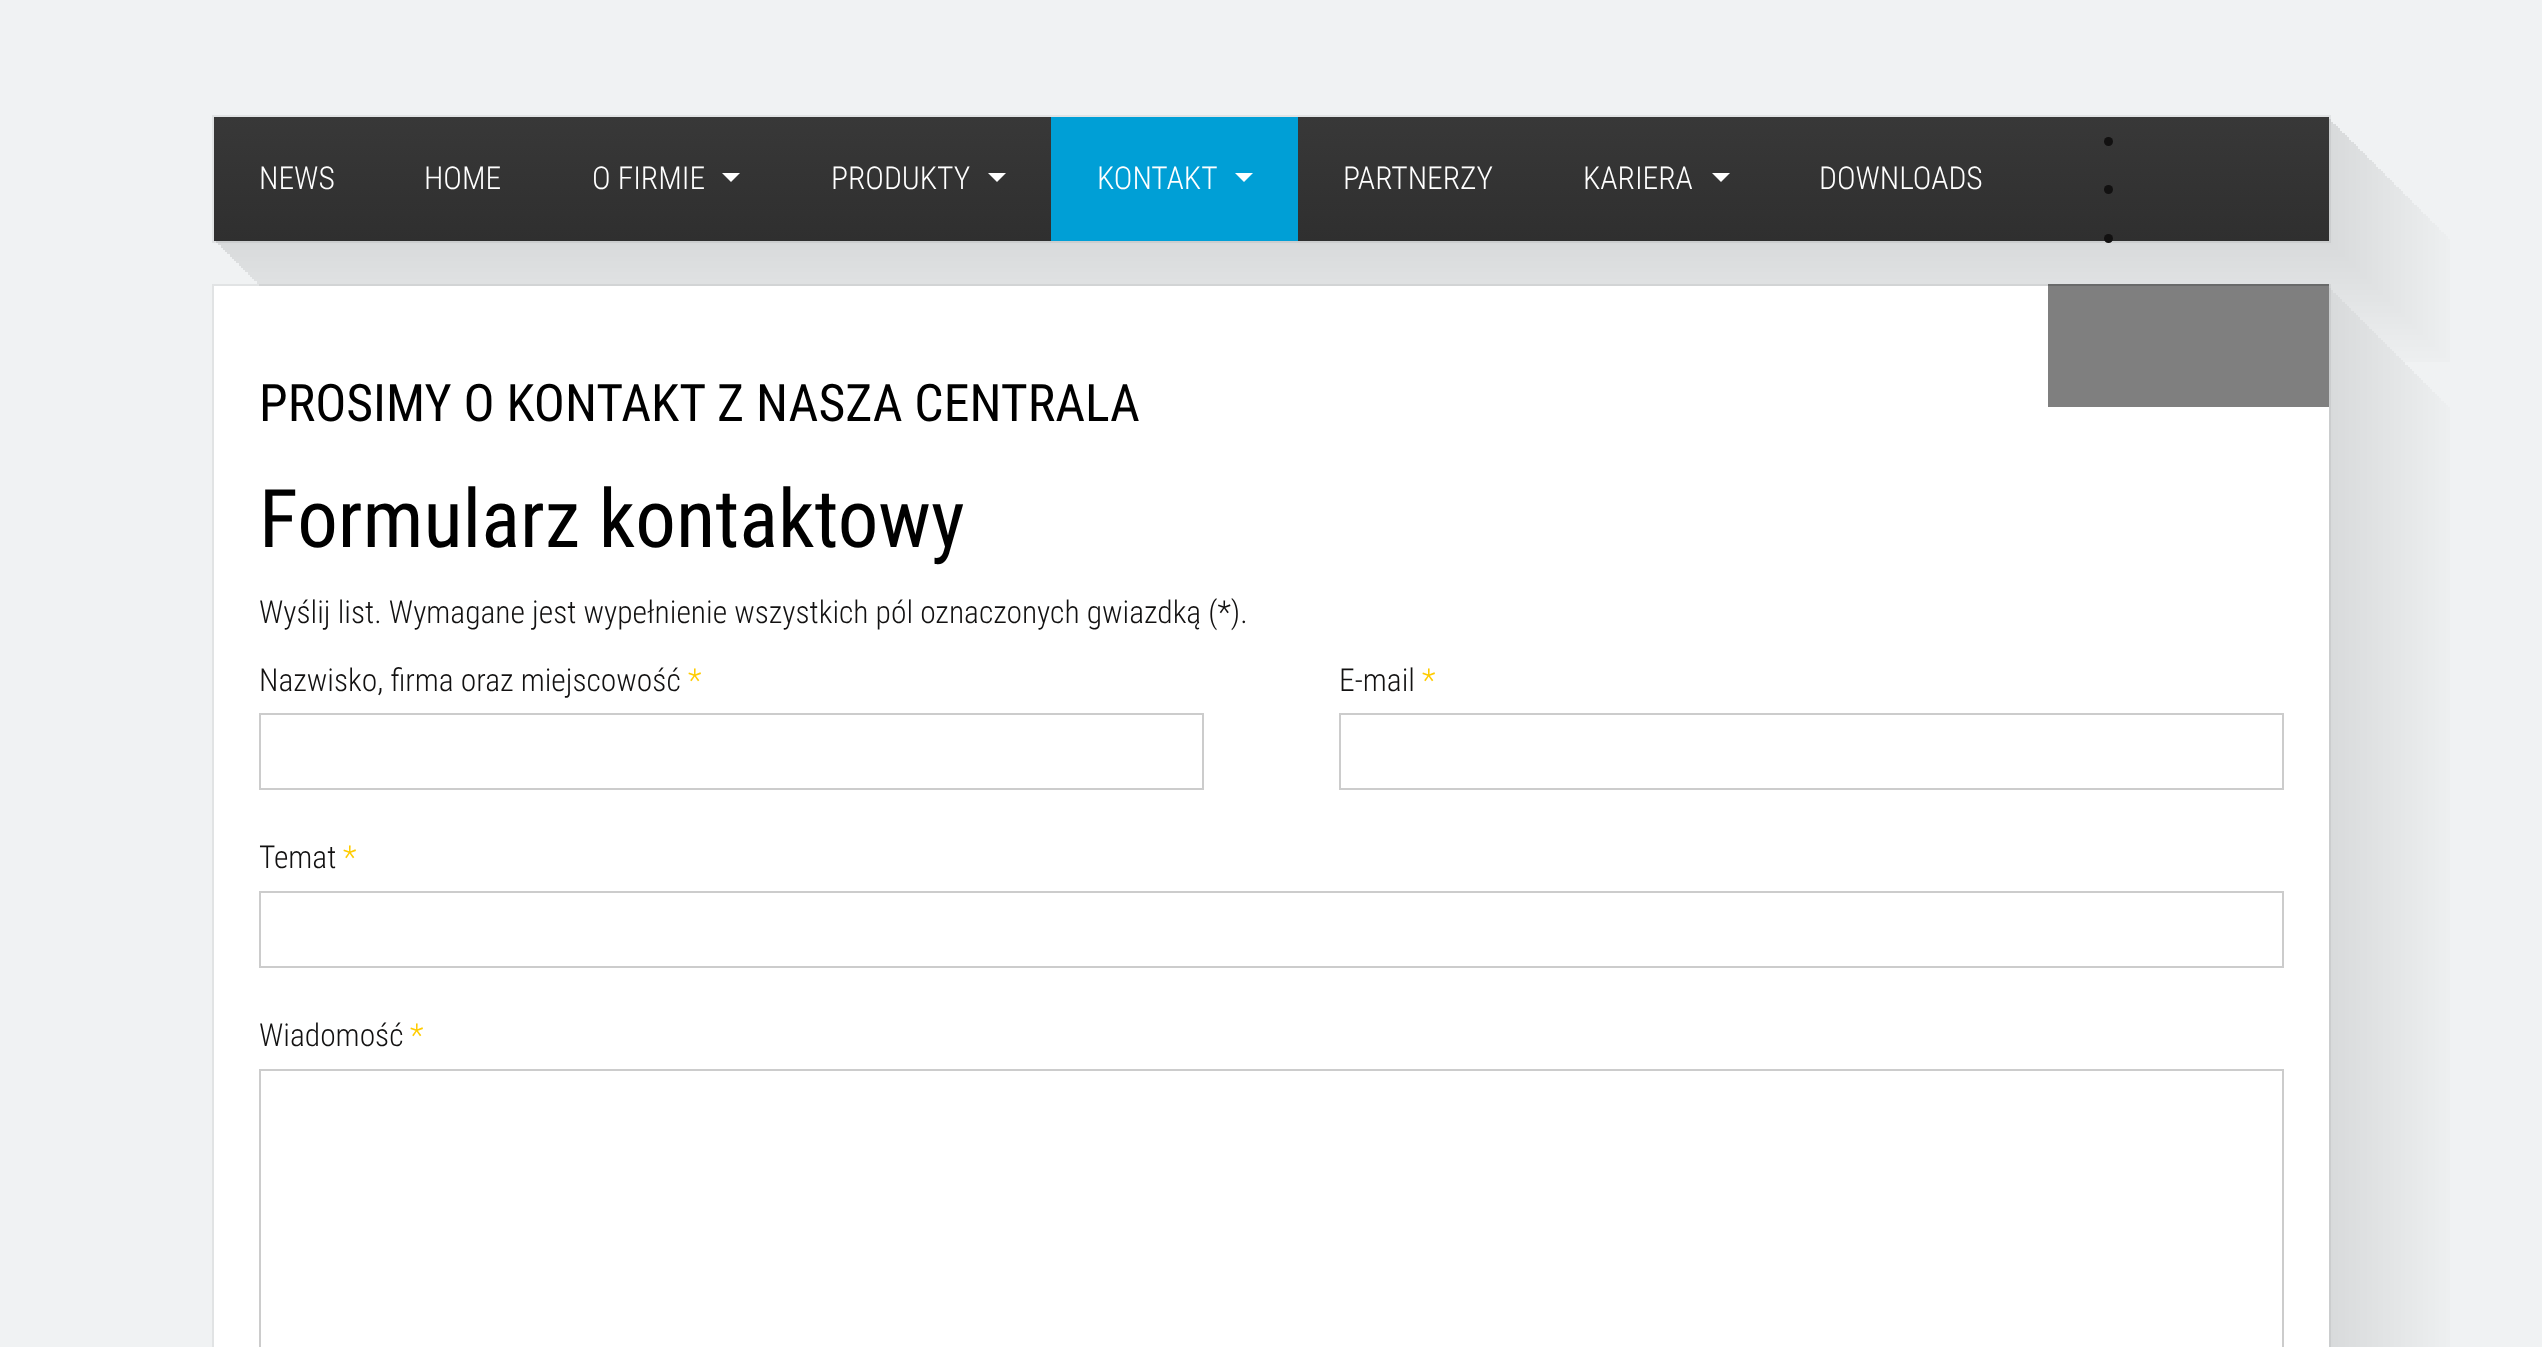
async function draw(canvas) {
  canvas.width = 2542;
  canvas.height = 1347;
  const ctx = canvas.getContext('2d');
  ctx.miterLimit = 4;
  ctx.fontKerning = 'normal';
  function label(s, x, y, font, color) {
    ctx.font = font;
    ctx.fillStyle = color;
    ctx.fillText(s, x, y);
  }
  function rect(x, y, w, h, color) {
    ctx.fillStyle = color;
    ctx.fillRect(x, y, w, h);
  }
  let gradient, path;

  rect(0, 0, 2542, 1347, '#f0f2f3');
  ctx.fillStyle = '#edeff0';
  path = new Path2D('M335 241V362H2450V239H2329V241Z');
  ctx.fill(path);
  path = new Path2D('M333 241V360H2448V236H2329V241Z');
  ctx.fill(path);
  ctx.fillStyle = '#eceeef';
  path = new Path2D('M331 241V358H2446V234H2329V241Z');
  ctx.fill(path);
  path = new Path2D('M329 241V356H2444V232H2329V241Z');
  ctx.fill(path);
  path = new Path2D('M326 241V353H2441V230H2329V241Z');
  ctx.fill(path);
  ctx.fillStyle = '#ebedee';
  path = new Path2D('M324 241V351H2439V227H2329V241Z');
  ctx.fill(path);
  path = new Path2D('M322 241V349H2437V225H2329V241Z');
  ctx.fill(path);
  ctx.fillStyle = '#eaeced';
  path = new Path2D('M320 241V347H2435V223H2329V241Z');
  ctx.fill(path);
  path = new Path2D('M317 241V344H2432V221H2329V241Z');
  ctx.fill(path);
  path = new Path2D('M315 241V342H2430V218H2329V241Z');
  ctx.fill(path);
  ctx.fillStyle = '#e9ebec';
  path = new Path2D('M313 241V340H2428V216H2329V241Z');
  ctx.fill(path);
  path = new Path2D('M311 241V338H2426V214H2329V241Z');
  ctx.fill(path);
  ctx.fillStyle = '#e8eaeb';
  path = new Path2D('M308 241V335H2423V212H2329V241Z');
  ctx.fill(path);
  path = new Path2D('M306 241V333H2421V209H2329V241Z');
  ctx.fill(path);
  path = new Path2D('M304 241V331H2419V207H2329V241Z');
  ctx.fill(path);
  ctx.fillStyle = '#e7e9ea';
  path = new Path2D('M302 241V329H2417V205H2329V241Z');
  ctx.fill(path);
  path = new Path2D('M299 241V326H2414V203H2329V241Z');
  ctx.fill(path);
  ctx.fillStyle = '#e6e8e9';
  path = new Path2D('M297 241V324H2412V200H2329V241Z');
  ctx.fill(path);
  path = new Path2D('M295 241V322H2410V198H2329V241Z');
  ctx.fill(path);
  path = new Path2D('M293 241V320H2408V196H2329V241Z');
  ctx.fill(path);
  ctx.fillStyle = '#e5e7e8';
  path = new Path2D('M290 241V317H2405V194H2329V241Z');
  ctx.fill(path);
  path = new Path2D('M288 241V315H2403V191H2329V241Z');
  ctx.fill(path);
  ctx.fillStyle = '#e4e6e7';
  path = new Path2D('M286 241V313H2401V189H2329V241Z');
  ctx.fill(path);
  path = new Path2D('M284 241V311H2399V187H2329V241Z');
  ctx.fill(path);
  path = new Path2D('M281 241V308H2396V185H2329V241Z');
  ctx.fill(path);
  ctx.fillStyle = '#e3e5e6';
  path = new Path2D('M279 241V306H2394V182H2329V241Z');
  ctx.fill(path);
  path = new Path2D('M277 241V304H2392V180H2329V241Z');
  ctx.fill(path);
  ctx.fillStyle = '#e2e4e5';
  path = new Path2D('M275 241V302H2390V178H2329V241Z');
  ctx.fill(path);
  path = new Path2D('M272 241V299H2387V176H2329V241Z');
  ctx.fill(path);
  path = new Path2D('M270 241V297H2385V173H2329V241Z');
  ctx.fill(path);
  ctx.fillStyle = '#e1e3e4';
  path = new Path2D('M268 241V295H2383V171H2329V241Z');
  ctx.fill(path);
  path = new Path2D('M266 241V293H2381V169H2329V241Z');
  ctx.fill(path);
  ctx.fillStyle = '#e0e2e3';
  path = new Path2D('M263 241V290H2378V167H2329V241Z');
  ctx.fill(path);
  path = new Path2D('M261 241V288H2376V164H2329V241Z');
  ctx.fill(path);
  path = new Path2D('M259 241V286H2374V162H2329V241Z');
  ctx.fill(path);
  ctx.fillStyle = '#dfe1e2';
  path = new Path2D('M257 241V284H2372V160H2329V241Z');
  ctx.fill(path);
  path = new Path2D('M254 241V281H2369V158H2329V241Z');
  ctx.fill(path);
  ctx.fillStyle = '#dee0e1';
  path = new Path2D('M252 241V279H2367V155H2329V241Z');
  ctx.fill(path);
  path = new Path2D('M250 241V277H2365V153H2329V241Z');
  ctx.fill(path);
  path = new Path2D('M248 241V275H2363V151H2329V241Z');
  ctx.fill(path);
  ctx.fillStyle = '#dddfe0';
  path = new Path2D('M245 241V272H2360V149H2329V241Z');
  ctx.fill(path);
  path = new Path2D('M243 241V270H2358V146H2329V241Z');
  ctx.fill(path);
  ctx.fillStyle = '#dcdedf';
  path = new Path2D('M241 241V268H2356V144H2329V241Z');
  ctx.fill(path);
  path = new Path2D('M239 241V266H2354V142H2329V241Z');
  ctx.fill(path);
  path = new Path2D('M236 241V263H2351V140H2329V241Z');
  ctx.fill(path);
  ctx.fillStyle = '#dbddde';
  path = new Path2D('M234 241V261H2349V137H2329V241Z');
  ctx.fill(path);
  path = new Path2D('M232 241V259H2347V135H2329V241Z');
  ctx.fill(path);
  ctx.fillStyle = '#dadcdd';
  path = new Path2D('M230 241V257H2345V133H2329V241Z');
  ctx.fill(path);
  path = new Path2D('M227 241V254H2342V131H2329V241Z');
  ctx.fill(path);
  path = new Path2D('M225 241V252H2340V128H2329V241Z');
  ctx.fill(path);
  ctx.fillStyle = '#d9dbdc';
  path = new Path2D('M223 241V250H2338V126H2329V241Z');
  ctx.fill(path);
  path = new Path2D('M221 241V248H2336V124H2329V241Z');
  ctx.fill(path);
  ctx.fillStyle = '#d8dadb';
  path = new Path2D('M218 241V245H2333V122H2329V241Z');
  ctx.fill(path);
  path = new Path2D('M216 241V243H2331V119H2329V241Z');
  ctx.fill(path);
  ctx.strokeStyle = '#0000000f';
  ctx.lineWidth = 2;
  ctx.strokeRect(213, 116, 2117, 126);
  gradient = ctx.createLinearGradient(1271, 117, 1271, 241);
  gradient.addColorStop(0, '#383838');
  gradient.addColorStop(1, '#2f2f2f');
  ctx.fillStyle = gradient;
  ctx.fillRect(214, 117, 2115, 124);
  label('NEWS', 259, 189, '300 31.5px Roboto Condensed', '#fff');
  label('HOME', 424, 189, '300 31.5px Roboto Condensed', '#fff');
  label('O FIRMIE', 592, 189, '300 31.5px Roboto Condensed', '#fff');
  path = new Path2D('M722 173H740L731 182Z');
  ctx.fill(path);
  label('PRODUKTY', 831, 189, '300 31.5px Roboto Condensed', '#fff');
  path = new Path2D('M988 173H1006L997 182Z');
  ctx.fill(path);
  rect(1051, 117, 247, 124, '#009fd6');
  label('KONTAKT', 1097, 189, '300 31.5px Roboto Condensed', '#fff');
  path = new Path2D('M1235 173H1253L1244 182Z');
  ctx.fill(path);
  label('PARTNERZY', 1343, 189, '300 31.5px Roboto Condensed', '#fff');
  label('KARIERA', 1583, 189, '300 31.5px Roboto Condensed', '#fff');
  path = new Path2D('M1712 173H1730L1721 182Z');
  ctx.fill(path);
  label('DOWNLOADS', 1819, 189, '300 31.5px Roboto Condensed', '#fff');
  ctx.fillStyle = '#121111';
  ctx.beginPath();
  ctx.arc(2108.5, 141.5, 4.5, 0, 2 * Math.PI);
  ctx.fill();
  ctx.beginPath();
  ctx.arc(2108.5, 189.5, 4.5, 0, 2 * Math.PI);
  ctx.fill();
  ctx.beginPath();
  ctx.arc(2108.5, 238.5, 4.5, 0, 2 * Math.PI);
  ctx.fill();
  ctx.fillStyle = '#edeff0';
  path = new Path2D('M335 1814V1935H2450V407H2329V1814Z');
  ctx.fill(path);
  path = new Path2D('M333 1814V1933H2448V405H2329V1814Z');
  ctx.fill(path);
  ctx.fillStyle = '#eceeef';
  path = new Path2D('M331 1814V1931H2446V403H2329V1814Z');
  ctx.fill(path);
  path = new Path2D('M329 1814V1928H2444V401H2329V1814Z');
  ctx.fill(path);
  path = new Path2D('M326 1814V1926H2441V398H2329V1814Z');
  ctx.fill(path);
  ctx.fillStyle = '#ebedee';
  path = new Path2D('M324 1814V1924H2439V396H2329V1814Z');
  ctx.fill(path);
  path = new Path2D('M322 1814V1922H2437V394H2329V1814Z');
  ctx.fill(path);
  ctx.fillStyle = '#eaeced';
  path = new Path2D('M320 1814V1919H2435V392H2329V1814Z');
  ctx.fill(path);
  path = new Path2D('M317 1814V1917H2432V389H2329V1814Z');
  ctx.fill(path);
  path = new Path2D('M315 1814V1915H2430V387H2329V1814Z');
  ctx.fill(path);
  ctx.fillStyle = '#e9ebec';
  path = new Path2D('M313 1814V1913H2428V385H2329V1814Z');
  ctx.fill(path);
  path = new Path2D('M311 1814V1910H2426V383H2329V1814Z');
  ctx.fill(path);
  ctx.fillStyle = '#e8eaeb';
  path = new Path2D('M308 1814V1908H2423V380H2329V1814Z');
  ctx.fill(path);
  path = new Path2D('M306 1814V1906H2421V378H2329V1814Z');
  ctx.fill(path);
  path = new Path2D('M304 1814V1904H2419V376H2329V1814Z');
  ctx.fill(path);
  ctx.fillStyle = '#e7e9ea';
  path = new Path2D('M302 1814V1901H2417V374H2329V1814Z');
  ctx.fill(path);
  path = new Path2D('M299 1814V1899H2414V371H2329V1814Z');
  ctx.fill(path);
  ctx.fillStyle = '#e6e8e9';
  path = new Path2D('M297 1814V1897H2412V369H2329V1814Z');
  ctx.fill(path);
  path = new Path2D('M295 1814V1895H2410V367H2329V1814Z');
  ctx.fill(path);
  path = new Path2D('M293 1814V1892H2408V365H2329V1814Z');
  ctx.fill(path);
  ctx.fillStyle = '#e5e7e8';
  path = new Path2D('M290 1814V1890H2405V362H2329V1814Z');
  ctx.fill(path);
  path = new Path2D('M288 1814V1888H2403V360H2329V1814Z');
  ctx.fill(path);
  ctx.fillStyle = '#e4e6e7';
  path = new Path2D('M286 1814V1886H2401V358H2329V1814Z');
  ctx.fill(path);
  path = new Path2D('M284 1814V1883H2399V356H2329V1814Z');
  ctx.fill(path);
  path = new Path2D('M281 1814V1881H2396V353H2329V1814Z');
  ctx.fill(path);
  ctx.fillStyle = '#e3e5e6';
  path = new Path2D('M279 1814V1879H2394V351H2329V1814Z');
  ctx.fill(path);
  path = new Path2D('M277 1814V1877H2392V349H2329V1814Z');
  ctx.fill(path);
  ctx.fillStyle = '#e2e4e5';
  path = new Path2D('M275 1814V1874H2390V347H2329V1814Z');
  ctx.fill(path);
  path = new Path2D('M272 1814V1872H2387V344H2329V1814Z');
  ctx.fill(path);
  path = new Path2D('M270 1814V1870H2385V342H2329V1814Z');
  ctx.fill(path);
  ctx.fillStyle = '#e1e3e4';
  path = new Path2D('M268 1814V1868H2383V340H2329V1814Z');
  ctx.fill(path);
  path = new Path2D('M266 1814V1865H2381V338H2329V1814Z');
  ctx.fill(path);
  ctx.fillStyle = '#e0e2e3';
  path = new Path2D('M263 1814V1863H2378V335H2329V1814Z');
  ctx.fill(path);
  path = new Path2D('M261 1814V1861H2376V333H2329V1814Z');
  ctx.fill(path);
  path = new Path2D('M259 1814V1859H2374V331H2329V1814Z');
  ctx.fill(path);
  ctx.fillStyle = '#dfe1e2';
  path = new Path2D('M257 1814V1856H2372V329H2329V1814Z');
  ctx.fill(path);
  path = new Path2D('M254 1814V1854H2369V326H2329V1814Z');
  ctx.fill(path);
  ctx.fillStyle = '#dee0e1';
  path = new Path2D('M252 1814V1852H2367V324H2329V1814Z');
  ctx.fill(path);
  path = new Path2D('M250 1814V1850H2365V322H2329V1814Z');
  ctx.fill(path);
  path = new Path2D('M248 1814V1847H2363V320H2329V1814Z');
  ctx.fill(path);
  ctx.fillStyle = '#dddfe0';
  path = new Path2D('M245 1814V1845H2360V317H2329V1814Z');
  ctx.fill(path);
  path = new Path2D('M243 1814V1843H2358V315H2329V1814Z');
  ctx.fill(path);
  ctx.fillStyle = '#dcdedf';
  path = new Path2D('M241 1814V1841H2356V313H2329V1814Z');
  ctx.fill(path);
  path = new Path2D('M239 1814V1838H2354V311H2329V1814Z');
  ctx.fill(path);
  path = new Path2D('M236 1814V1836H2351V308H2329V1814Z');
  ctx.fill(path);
  ctx.fillStyle = '#dbddde';
  path = new Path2D('M234 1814V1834H2349V306H2329V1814Z');
  ctx.fill(path);
  path = new Path2D('M232 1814V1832H2347V304H2329V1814Z');
  ctx.fill(path);
  ctx.fillStyle = '#dadcdd';
  path = new Path2D('M230 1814V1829H2345V302H2329V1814Z');
  ctx.fill(path);
  path = new Path2D('M227 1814V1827H2342V299H2329V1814Z');
  ctx.fill(path);
  path = new Path2D('M225 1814V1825H2340V297H2329V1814Z');
  ctx.fill(path);
  ctx.fillStyle = '#d9dbdc';
  path = new Path2D('M223 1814V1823H2338V295H2329V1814Z');
  ctx.fill(path);
  path = new Path2D('M221 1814V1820H2336V293H2329V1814Z');
  ctx.fill(path);
  ctx.fillStyle = '#d8dadb';
  path = new Path2D('M218 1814V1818H2333V290H2329V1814Z');
  ctx.fill(path);
  path = new Path2D('M216 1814V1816H2331V288H2329V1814Z');
  ctx.fill(path);
  ctx.strokeRect(213, 285, 2117, 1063);
  rect(214, 286, 2115, 1061, '#fff');
  rect(2048, 284, 281, 123, '#00000080');
  label('PROSIMY O KONTAKT Z NASZA CENTRALA', 259, 421, '51.75px Roboto Condensed', '#000');
  label('Formularz kontaktowy', 259, 547, '81px Roboto Condensed', '#000');
  label('Wyślij list. Wymagane jest wypełnienie wszystkich pól oznaczonych gwiazdką (*).', 259, 623, '300 31.5px Roboto Condensed', '#121111');
  label('Nazwisko, firma oraz miejscowość', 259, 691, '300 31.5px Roboto Condensed', '#121111');
  label('*', 688, 691, '300 31.5px Roboto Condensed', '#fc0');
  ctx.strokeStyle = '#ccc';
  ctx.strokeRect(260, 714, 943, 75);
  label('E-mail', 1339, 691, '300 31.5px Roboto Condensed', '#121111');
  label('*', 1422, 691, '300 31.5px Roboto Condensed', '#fc0');
  ctx.strokeRect(1340, 714, 943, 75);
  label('Temat', 259, 868, '300 31.5px Roboto Condensed', '#121111');
  label('*', 343, 868, '300 31.5px Roboto Condensed', '#fc0');
  ctx.strokeRect(260, 892, 2023, 75);
  label('Wiadomość', 259, 1046, '300 31.5px Roboto Condensed', '#121111');
  label('*', 410, 1046, '300 31.5px Roboto Condensed', '#fc0');
  ctx.strokeRect(260, 1070, 2023, 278);
}

draw(document.querySelector('canvas'));
